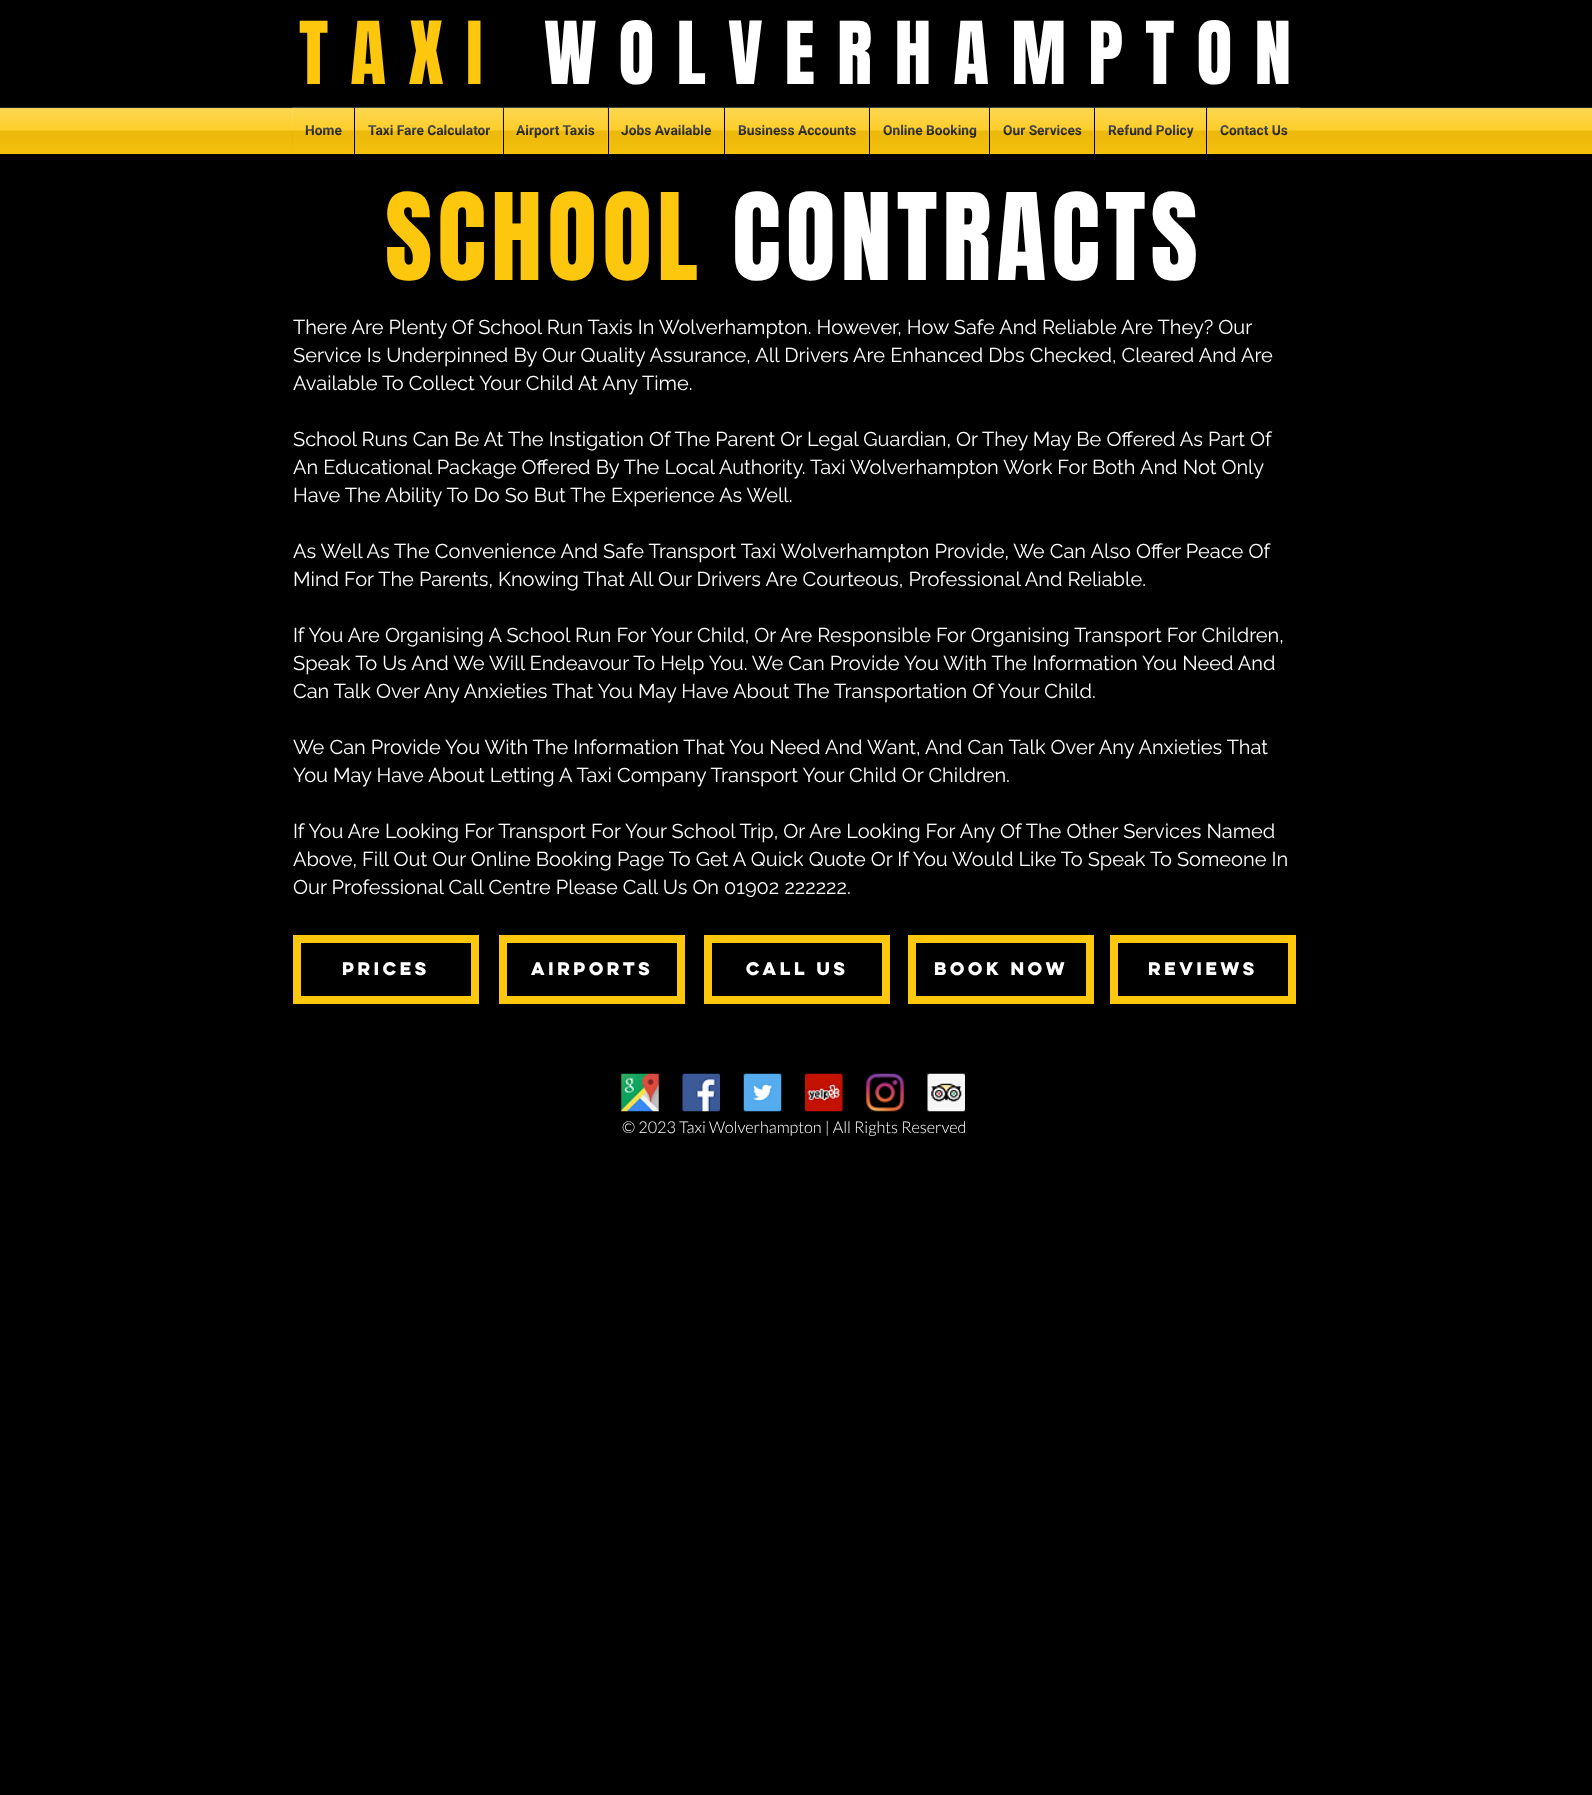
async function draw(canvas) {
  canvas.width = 1592;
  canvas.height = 1795;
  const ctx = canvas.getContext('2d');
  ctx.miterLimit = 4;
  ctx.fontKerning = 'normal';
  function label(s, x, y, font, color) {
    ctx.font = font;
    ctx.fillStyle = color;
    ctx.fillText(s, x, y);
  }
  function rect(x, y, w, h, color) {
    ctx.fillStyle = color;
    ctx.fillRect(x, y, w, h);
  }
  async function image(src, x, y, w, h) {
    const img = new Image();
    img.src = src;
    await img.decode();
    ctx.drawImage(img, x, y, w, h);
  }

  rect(0, 0, 1592, 1795, '#000');
  ctx.letterSpacing = '22.1px';
  label('TAXI', 299, 84, '73.75px Anton', '#fdc70d');
  label('WOLVERHAMPTON', 544, 84, '73.75px Anton', '#fff');
  rect(0, 108, 1592, 46, '#fdc70d');
  await image('assets/img1.png', 0, 107, 1592, 46);
  rect(293, 108, 61, 45, '#fdc70d');
  ctx.letterSpacing = '0px';
  label('Home', 305, 135, 'bold 13.75px Roboto', '#2a2a2a');
  await image('assets/img2.png', 292, 107, 62, 46);
  rect(355, 108, 148, 45, '#fdc70d');
  rect(354, 108, 1, 46, '#000');
  label('Taxi Fare Calculator', 368, 135, 'bold 13.75px Roboto', '#2a2a2a');
  await image('assets/img3.png', 355, 107, 148, 46);
  rect(504, 108, 104, 45, '#fdc70d');
  rect(503, 108, 1, 46, '#000');
  label('Airport Taxis', 516, 135, 'bold 13.75px Roboto', '#2a2a2a');
  await image('assets/img4.png', 503, 107, 105, 46);
  rect(609, 108, 115, 45, '#fdc70d');
  rect(608, 108, 1, 46, '#000');
  label('Jobs Available', 621, 135, 'bold 13.75px Roboto', '#2a2a2a');
  await image('assets/img5.png', 608, 107, 116, 46);
  rect(725, 108, 144, 45, '#fdc70d');
  rect(724, 108, 1, 46, '#000');
  label('Business Accounts', 738, 135, 'bold 13.75px Roboto', '#2a2a2a');
  await image('assets/img6.png', 725, 107, 144, 46);
  rect(870, 108, 119, 45, '#fdc70d');
  rect(869, 108, 1, 46, '#000');
  label('Online Booking', 883, 135, 'bold 13.75px Roboto', '#2a2a2a');
  await image('assets/img7.png', 870, 107, 119, 46);
  rect(990, 108, 104, 45, '#fdc70d');
  rect(989, 108, 1, 46, '#000');
  label('Our Services', 1003, 135, 'bold 13.75px Roboto', '#2a2a2a');
  await image('assets/img8.png', 990, 107, 104, 46);
  rect(1095, 108, 111, 45, '#fdc70d');
  rect(1094, 108, 1, 46, '#000');
  label('Refund Policy', 1108, 135, 'bold 13.75px Roboto', '#2a2a2a');
  await image('assets/img9.png', 1095, 107, 112, 46);
  rect(1207, 108, 93, 45, '#fdc70d');
  rect(1206, 108, 1, 46, '#000');
  label('Contact Us', 1220, 135, 'bold 13.75px Roboto', '#2a2a2a');
  await image('assets/img10.png', 1207, 107, 93, 46);
  ctx.letterSpacing = '5.1px';
  label('SCHOOL', 385, 280, '102.5px Anton', '#fdc70d');
  label('CONTRACTS', 732, 280, '102.5px Anton', '#fff');
  ctx.letterSpacing = '0px';
  label('There Are Plenty Of School Run Taxis In Wolverhampton. However, How Safe And Reliable Are They? Our', 293, 334, '20px Raleway', '#fff');
  label('Service Is Underpinned By Our Quality Assurance, All Drivers Are Enhanced Dbs Checked, Cleared And Are', 293, 362, '20px Raleway', '#fff');
  label('Available To Collect Your Child At Any Time.', 293, 390, '20px Raleway', '#fff');
  label('School Runs Can Be At The Instigation Of The Parent Or Legal Guardian, Or They May Be Offered As Part Of', 293, 446, '20px Raleway', '#fff');
  label('An Educational Package Offered By The Local Authority. Taxi Wolverhampton Work For Both And Not Only', 293, 474, '20px Raleway', '#fff');
  label('Have The Ability To Do So But The Experience As Well.', 293, 502, '20px Raleway', '#fff');
  label('As Well As The Convenience And Safe Transport Taxi Wolverhampton Provide, We Can Also Offer Peace Of', 293, 558, '20px Raleway', '#fff');
  label('Mind For The Parents, Knowing That All Our Drivers Are Courteous, Professional And Reliable.', 293, 586, '20px Raleway', '#fff');
  label('If You Are Organising A School Run For Your Child, Or Are Responsible For Organising Transport For Children,', 293, 642, '20px Raleway', '#fff');
  label('Speak To Us And We Will Endeavour To Help You. We Can Provide You With The Information You Need And', 293, 670, '20px Raleway', '#fff');
  label('Can Talk Over Any Anxieties That You May Have About The Transportation Of Your Child.', 293, 698, '20px Raleway', '#fff');
  label('We Can Provide You With The Information That You Need And Want, And Can Talk Over Any Anxieties That', 293, 754, '20px Raleway', '#fff');
  label('You May Have About Letting A Taxi Company Transport Your Child Or Children.', 293, 782, '20px Raleway', '#fff');
  label('If You Are Looking For Transport For Your School Trip, Or Are Looking For Any Of The Other Services Named', 293, 838, '20px Raleway', '#fff');
  label('Above, Fill Out Our Online Booking Page To Get A Quick Quote Or If You Would Like To Speak To Someone In', 293, 866, '20px Raleway', '#fff');
  label('Our Professional Call Centre Please Call Us On 01902 222222.', 293, 894, '20px Raleway', '#fff');
  ctx.strokeStyle = '#fdc70d';
  ctx.lineWidth = 8;
  ctx.strokeRect(297, 939, 178, 61);
  label('PRICES', 342, 975, 'bold 16.25px "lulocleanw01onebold"', '#fff');
  ctx.strokeRect(503, 939, 178, 61);
  label('AIRPORTS', 531, 975, 'bold 16.25px "lulocleanw01onebold"', '#fff');
  ctx.strokeRect(708, 939, 178, 61);
  label('CALL US', 746, 975, 'bold 16.25px "lulocleanw01onebold"', '#fff');
  ctx.strokeRect(912, 939, 178, 61);
  label('BOOK NOW', 934, 975, 'bold 16.25px "lulocleanw01onebold"', '#fff');
  ctx.strokeRect(1114, 939, 178, 61);
  label('REVIEWS', 1148, 975, 'bold 16.25px "lulocleanw01onebold"', '#fff');
  await image('assets/img11.png', 621, 1073, 38, 39);
  await image('assets/img12.png', 682, 1073, 38, 39);
  await image('assets/img13.png', 743, 1073, 39, 39);
  await image('assets/img14.png', 805, 1073, 38, 39);
  await image('assets/img15.png', 866, 1073, 38, 39);
  await image('assets/img16.png', 927, 1073, 38, 39);
  label('© 2023 Taxi Wolverhampton | All Rights Reserved', 622, 1133, '300 16.25px Lato', '#fff');
}

draw(document.querySelector('canvas'));
